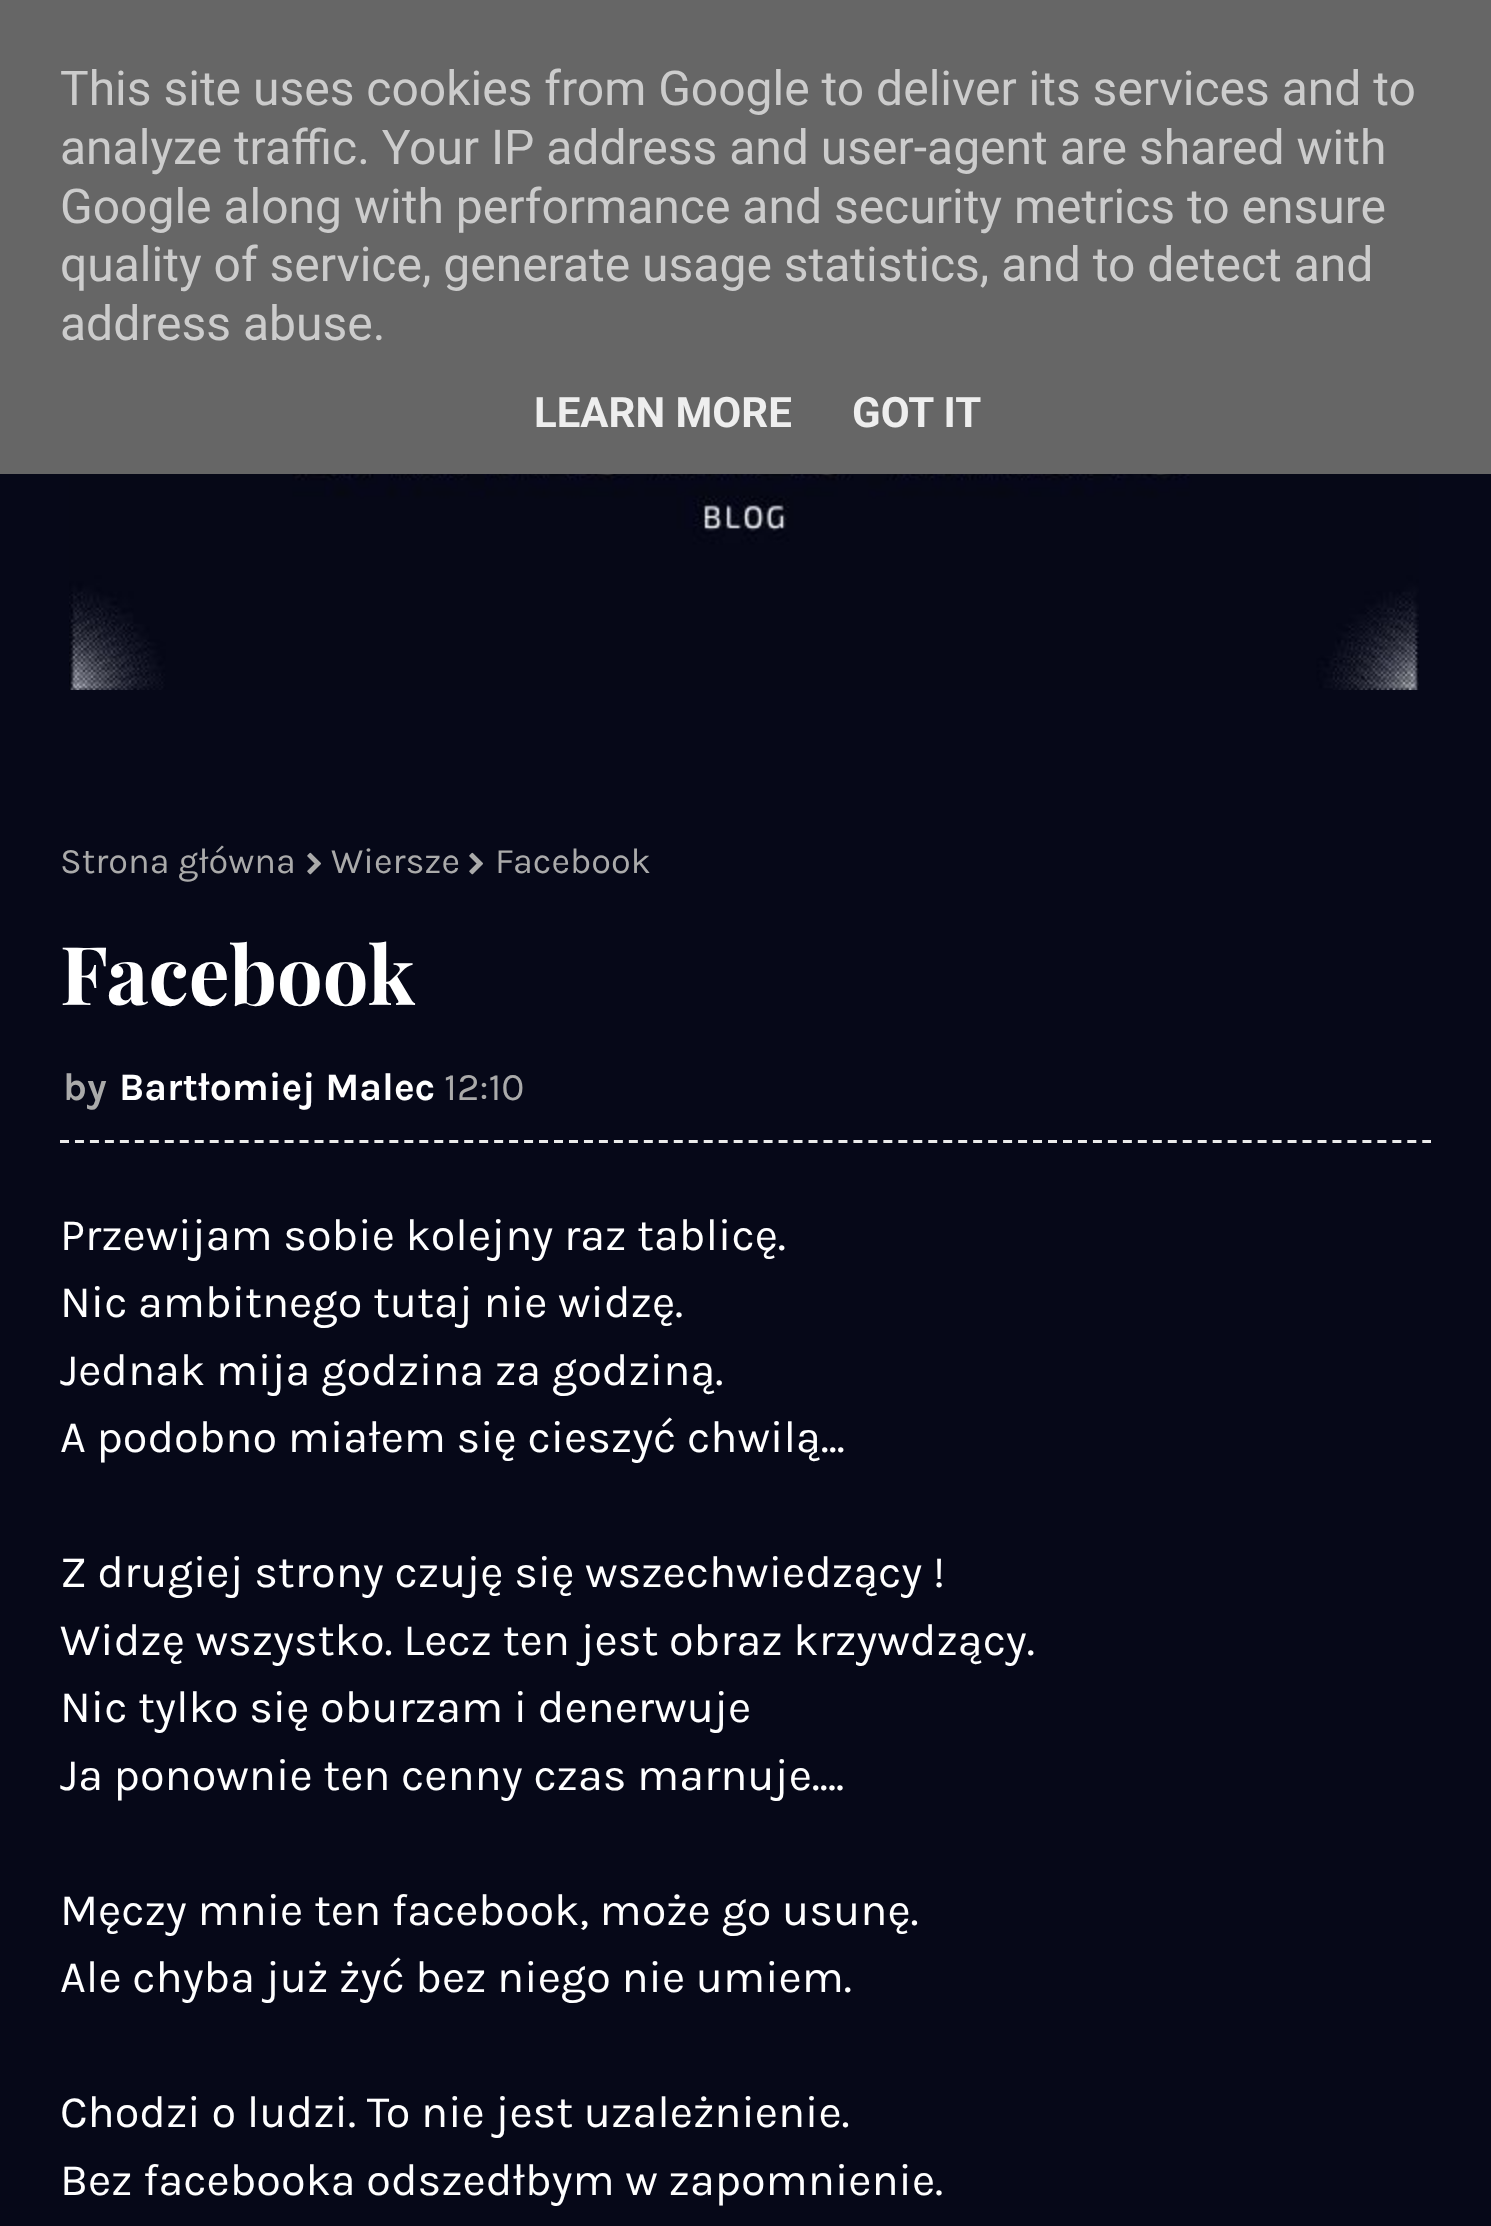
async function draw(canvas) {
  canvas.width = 1491;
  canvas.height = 2226;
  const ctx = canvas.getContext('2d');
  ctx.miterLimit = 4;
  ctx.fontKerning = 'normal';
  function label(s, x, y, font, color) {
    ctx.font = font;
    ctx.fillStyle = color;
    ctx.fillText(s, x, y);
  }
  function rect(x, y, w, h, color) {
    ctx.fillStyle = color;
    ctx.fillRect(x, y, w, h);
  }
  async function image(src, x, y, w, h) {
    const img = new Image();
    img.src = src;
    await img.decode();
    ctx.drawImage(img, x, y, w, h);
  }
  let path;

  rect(0, 0, 1491, 2226, '#060818');
  rect(0, 0, 1491, 474, '#666');
  label('This site uses cookies from Google to deliver its services and to', 60, 105, '48px Roboto', '#ccc');
  label('analyze traffic. Your IP address and user-agent are shared with', 60, 164, '48px Roboto', '#ccc');
  label('Google along with performance and security metrics to ensure', 60, 223, '48px Roboto', '#ccc');
  label('quality of service, generate usage statistics, and to detect and', 60, 281, '48px Roboto', '#ccc');
  label('address abuse.', 60, 340, '48px Roboto', '#ccc');
  label('LEARN MORE', 534, 427, 'bold 42px Roboto', '#eee');
  label('GOT IT', 852, 427, 'bold 42px Roboto', '#eee');
  await image('assets/img1.png', 69, 474, 1350, 216);
  label('Strona główna', 60, 873, '36px Karla', '#aaa');
  await image('assets/img2.png', 307, 852, 14, 23);
  label('Wiersze', 331, 873, '36px Karla', '#aaa');
  await image('assets/img2.png', 469, 852, 14, 23);
  label('Facebook', 495, 873, '36px Karla', '#aaa');
  label('Facebook', 60, 1005, 'bold 81px Playfair Display', '#fff');
  label('by', 63, 1100, 'bold 39px Karla', '#aaa');
  label('Bartłomiej Malec', 119, 1100, 'bold 39px Karla', '#fff');
  label('12:10', 444, 1100, '39px Karla', '#aaa');
  path = new Path2D('M60 1141.5H1431');
  ctx.strokeStyle = '#ebebeb';
  ctx.lineWidth = 3;
  ctx.setLineDash([9, 5.97]);
  ctx.stroke(path);
  label('Przewijam sobie kolejny raz tablicę.', 60, 1250, '45px Karla', '#fff');
  label('Nic ambitnego tutaj nie widzę.', 60, 1317, '45px Karla', '#fff');
  label('Jednak mija godzina za godziną.', 60, 1385, '45px Karla', '#fff');
  label('A podobno miałem się cieszyć chwilą...', 60, 1452, '45px Karla', '#fff');
  label('Z drugiej strony czuję się wszechwiedzący !', 60, 1587, '45px Karla', '#fff');
  label('Widzę wszystko. Lecz ten jest obraz krzywdzący.', 60, 1655, '45px Karla', '#fff');
  label('Nic tylko się oburzam i denerwuje', 60, 1722, '45px Karla', '#fff');
  label('Ja ponownie ten cenny czas marnuje....', 60, 1790, '45px Karla', '#fff');
  label('Męczy mnie ten facebook, może go usunę.', 60, 1925, '45px Karla', '#fff');
  label('Ale chyba już żyć bez niego nie umiem.', 60, 1992, '45px Karla', '#fff');
  label('Chodzi o ludzi. To nie jest uzależnienie.', 60, 2127, '45px Karla', '#fff');
  label('Bez facebooka odszedłbym w zapomnienie.', 60, 2195, '45px Karla', '#fff');
}

draw(document.querySelector('canvas'));
